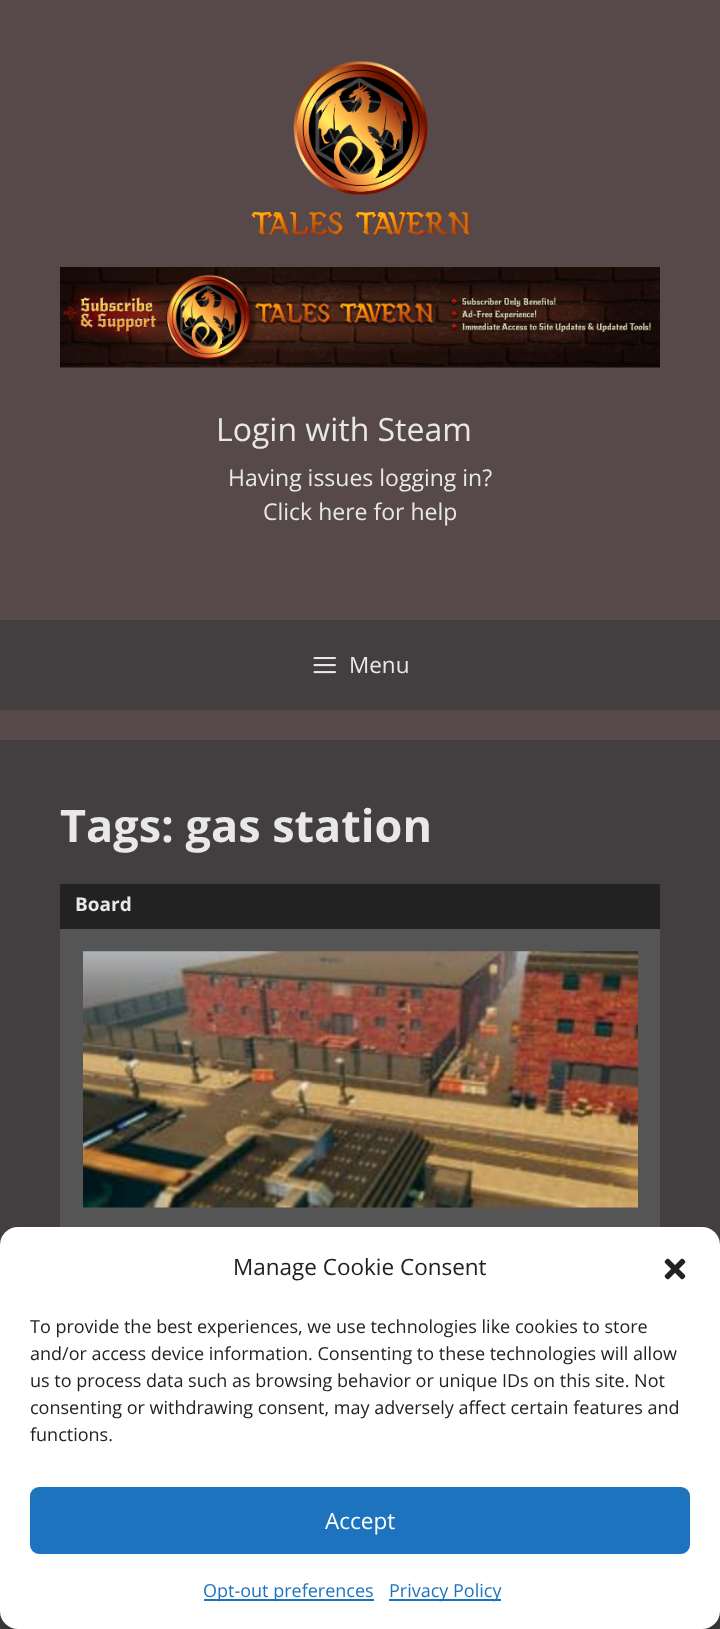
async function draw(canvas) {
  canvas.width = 720;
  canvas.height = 1629;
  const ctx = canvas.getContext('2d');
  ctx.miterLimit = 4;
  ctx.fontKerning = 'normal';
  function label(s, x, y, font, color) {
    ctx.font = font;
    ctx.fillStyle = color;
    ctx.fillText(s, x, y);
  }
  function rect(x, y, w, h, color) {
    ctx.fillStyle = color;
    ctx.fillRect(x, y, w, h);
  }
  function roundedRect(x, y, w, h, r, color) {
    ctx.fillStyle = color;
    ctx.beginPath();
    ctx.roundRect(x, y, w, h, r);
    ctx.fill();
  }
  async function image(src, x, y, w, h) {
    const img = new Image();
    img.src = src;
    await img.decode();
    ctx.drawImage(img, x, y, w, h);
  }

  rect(0, 0, 720, 1629, '#574949');
  await image('assets/img1.png', 251, 61, 220, 175);
  await image('assets/img2.png', 60, 267, 600, 101);
  label('Login with Steam', 216, 441, '32px Open Sans', '#e8e8e8');
  label('Having issues logging in?', 228, 486, '23px Open Sans', '#e8e8e8');
  label('Click here for help', 263, 520, '23px Open Sans', '#e8e8e8');
  rect(0, 620, 720, 90, '#433f40');
  await image('assets/img3.png', 313, 657, 23, 17);
  label('Menu', 349, 673, '22.5px Open Sans', '#e8e8e8');
  rect(0, 740, 720, 889, '#433f40');
  label('Tags: gas station', 60, 842, 'bold 45px Open Sans', '#e8e8e8');
  rect(60, 884, 600, 45, '#222');
  label('Board', 75, 911, 'bold 19px Open Sans', '#e8e8e8');
  rect(60, 929, 600, 298, '#555');
  await image('assets/img4.png', 83, 951, 555, 257);
  ctx.fillStyle = '#0000003b';
  ctx.filter = 'blur(4.5px)';
  ctx.beginPath();
  ctx.roundRect(0, 1236, 720, 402, 18);
  ctx.fill();
  ctx.filter = 'none';
  roundedRect(0, 1227, 720, 402, 18, '#fff');
  label('Manage Cookie Consent', 233, 1275, '22.5px Open Sans', '#222');
  await image('assets/img5.png', 664, 1258, 22, 22);
  label('To provide the best experiences, we use technologies like cookies to store', 30, 1333, '18px Open Sans', '#222');
  label('and/or access device information. Consenting to these technologies will allow', 30, 1360, '18px Open Sans', '#222');
  label('us to process data such as browsing behavior or unique IDs on this site. Not', 30, 1387, '18px Open Sans', '#222');
  label('consenting or withdrawing consent, may adversely affect certain features and', 30, 1414, '18px Open Sans', '#222');
  label('functions.', 30, 1441, '18px Open Sans', '#222');
  ctx.fillStyle = '#1e73be';
  ctx.beginPath();
  ctx.roundRect(31, 1488, 658, 65, 8);
  ctx.fill();
  ctx.strokeStyle = '#1e73be';
  ctx.lineWidth = 2;
  ctx.stroke();
  label('Accept', 325, 1529, '22.5px Open Sans', '#fff');
  rect(204, 1599, 170, 2, '#1e73be');
  label('Opt-out preferences', 203, 1597, '18px Open Sans', '#1e73be');
  rect(389, 1599, 112, 2, '#1e73be');
  label('Privacy Policy', 389, 1597, '18px Open Sans', '#1e73be');
}

draw(document.querySelector('canvas'));
